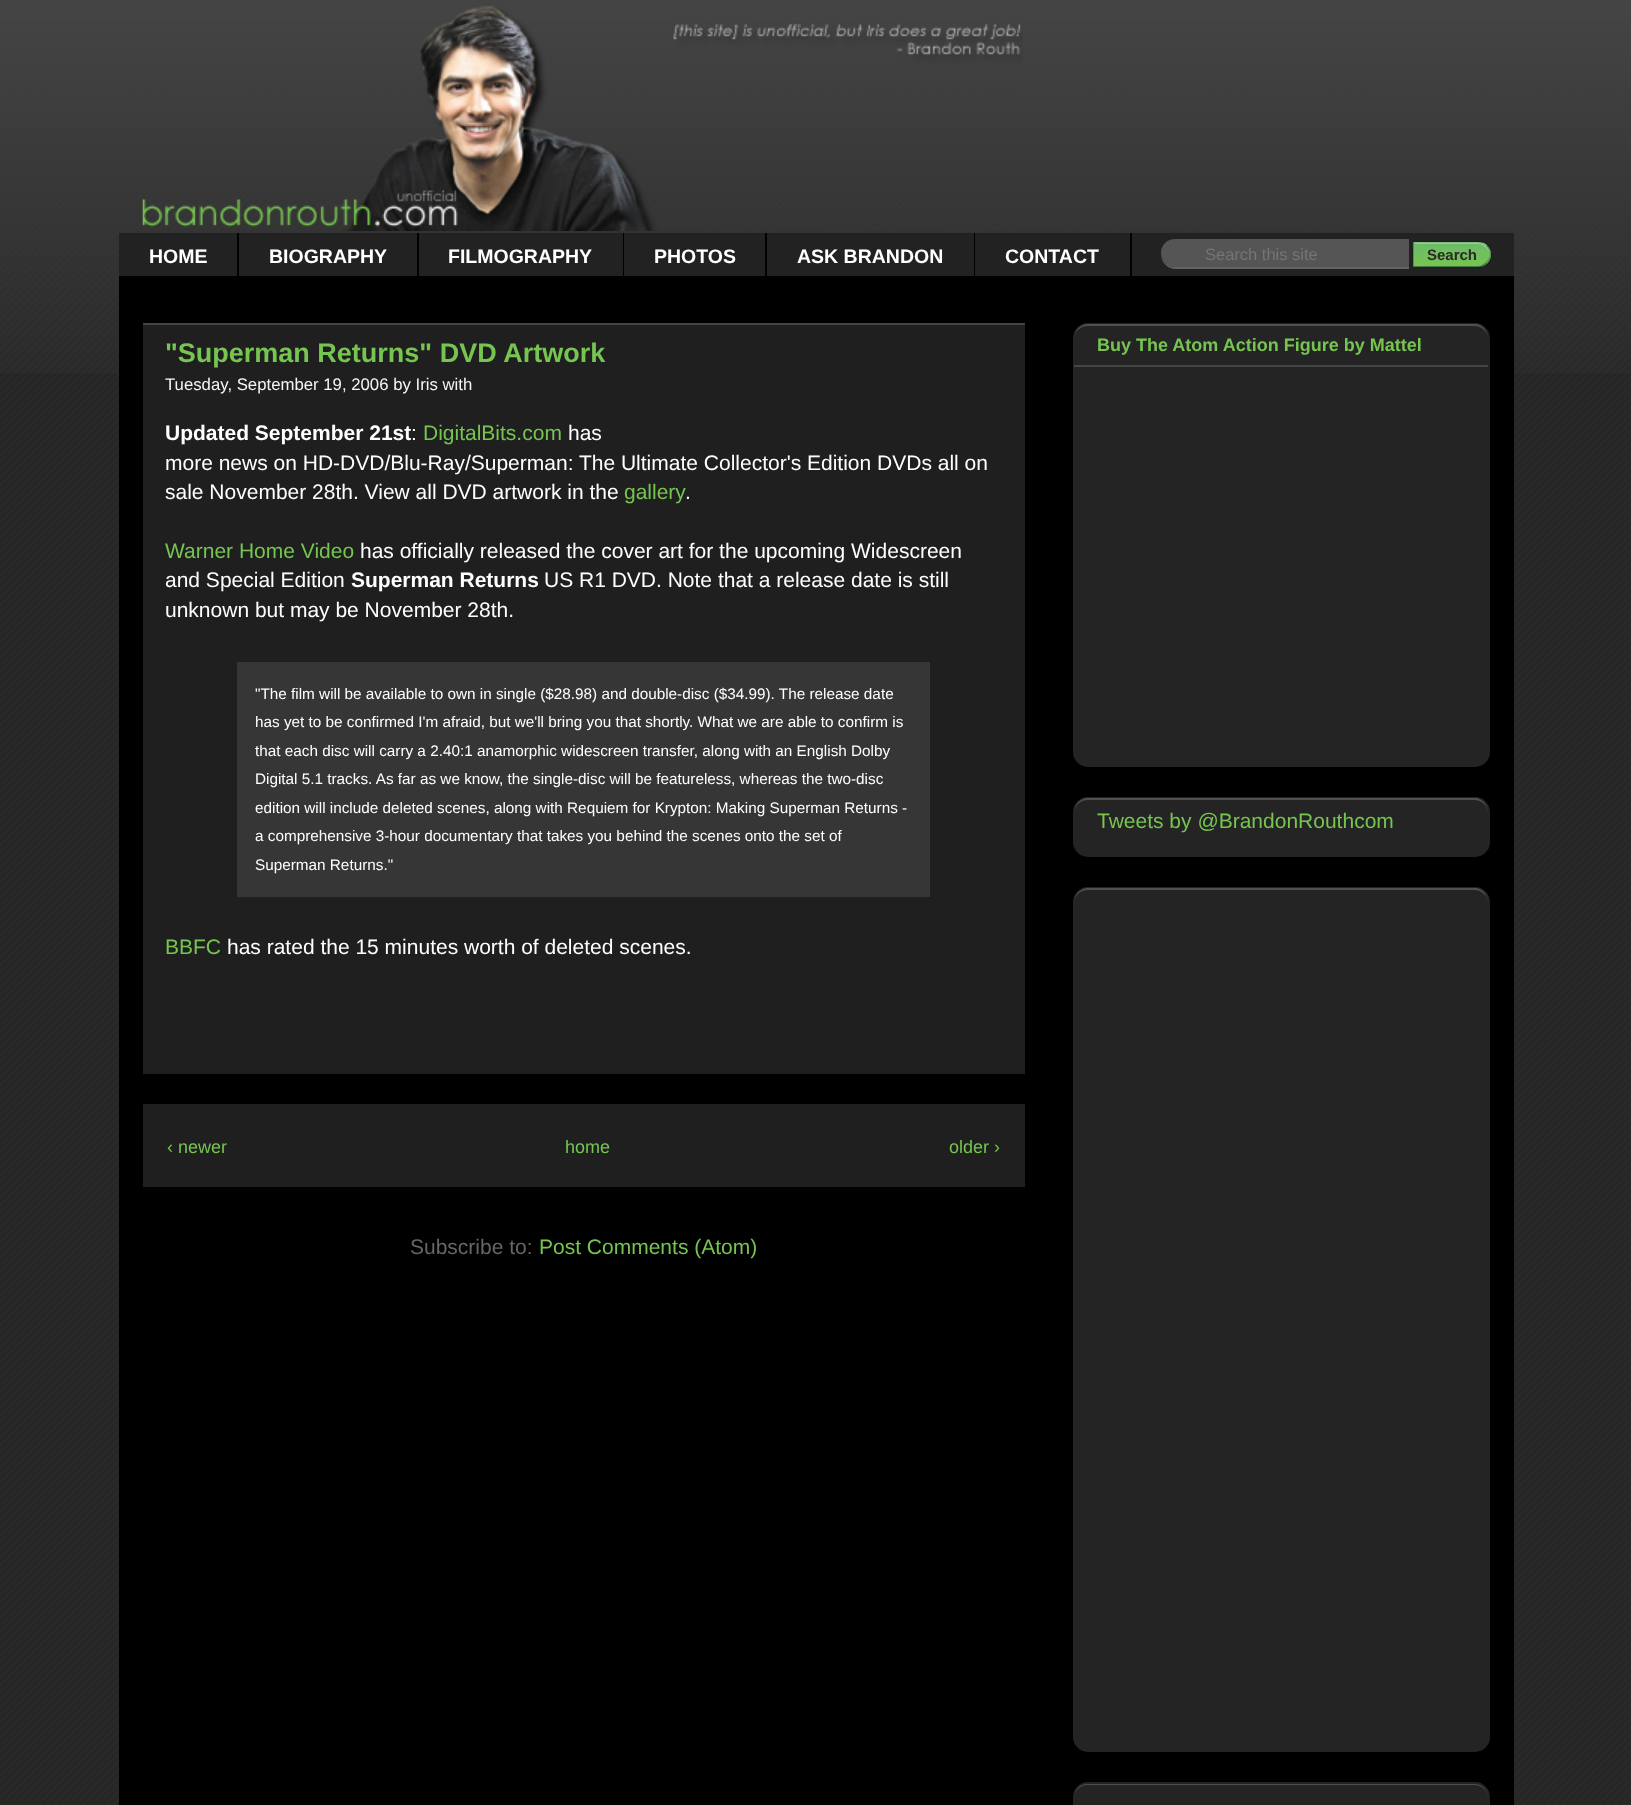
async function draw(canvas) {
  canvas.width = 1631;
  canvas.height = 1805;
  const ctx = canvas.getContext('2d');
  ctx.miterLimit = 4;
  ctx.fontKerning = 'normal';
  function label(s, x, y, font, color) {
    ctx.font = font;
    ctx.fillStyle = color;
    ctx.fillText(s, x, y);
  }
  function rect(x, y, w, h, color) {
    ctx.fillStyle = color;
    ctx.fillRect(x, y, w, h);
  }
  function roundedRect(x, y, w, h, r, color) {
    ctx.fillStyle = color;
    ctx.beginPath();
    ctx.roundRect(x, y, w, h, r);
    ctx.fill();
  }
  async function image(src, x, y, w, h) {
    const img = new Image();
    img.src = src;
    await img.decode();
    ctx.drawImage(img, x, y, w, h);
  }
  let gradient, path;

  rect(0, 0, 1631, 1805, '#292929');
  await image('assets/img1.png', 0, 20, 1630, 1784);
  await image('assets/img2.png', 0, 0, 1631, 373);
  await image('assets/img3.png', 142, 6, 881, 225);
  rect(119, 233, 1395, 43, '#222');
  rect(119, 231, 1395, 2, '#333');
  rect(119, 276, 1395, 1529, '#000');
  rect(237, 233, 2, 43, '#000');
  label('HOME', 149, 263, 'bold 19.5px Liberation Sans', '#fff');
  rect(417, 233, 2, 43, '#000');
  label('BIOGRAPHY', 269, 263, 'bold 19.5px Liberation Sans', '#fff');
  rect(623, 233, 1, 43, '#000');
  label('FILMOGRAPHY', 448, 263, 'bold 19.5px Liberation Sans', '#fff');
  rect(765, 233, 2, 43, '#000');
  label('PHOTOS', 654, 263, 'bold 19.5px Liberation Sans', '#fff');
  rect(974, 233, 1, 43, '#000');
  label('ASK BRANDON', 797, 263, 'bold 19.5px Liberation Sans', '#fff');
  rect(1130, 233, 2, 43, '#000');
  label('CONTACT', 1005, 263, 'bold 19.5px Liberation Sans', '#fff');
  ctx.fillStyle = '#646464';
  path = new Path2D('M1161 254C1161 262 1167 269 1176 269H1409V240H1408V267H1175C1168 267 1161 261 1161 254Z');
  ctx.fill(path);
  ctx.fillStyle = '#555';
  ctx.beginPath();
  ctx.roundRect(1161, 239, 248, 28, [14, 0, 0, 14]);
  ctx.fill();
  label('Search this site', 1205, 260, '16.5px Liberation Sans', '#757575');
  ctx.fillStyle = '#0000004d';
  ctx.filter = 'blur(1px)';
  ctx.beginPath();
  ctx.roundRect(1413, 242, 78, 25, 12.5);
  ctx.fill();
  ctx.filter = 'none';
  ctx.save();
  ctx.beginPath();
  ctx.roundRect(1413, 242, 78, 25, [0, 12.5, 12.5, 0]);
  ctx.clip();
  gradient = ctx.createLinearGradient(1415, 266, 1415, 243);
  gradient.addColorStop(0, '#76c550');
  gradient.addColorStop(1, '#6cbb6b');
  ctx.fillStyle = gradient;
  ctx.fillRect(1414, 243, 77, 23);
  ctx.restore();
  ctx.fillStyle = '#ffffff4d';
  path = new Path2D('M1415 243V244H1478C1484 244 1490 250 1490 255C1490 249 1485 243 1478 243Z');
  ctx.fill(path);
  ctx.fillStyle = '#7eba7c';
  path = new Path2D('M1487 245C1485 243 1482 242 1478 242H1414V243H1478C1481 243 1484 244 1486 246Z');
  ctx.fill(path);
  ctx.fillStyle = '#578e57';
  path = new Path2D('M1487 245.5C1492.5 250 1492 258.5 1487 263L1486 262C1491 257.5 1491.5 250.5 1486 246Z');
  ctx.fill(path);
  ctx.fillStyle = '#447d43';
  path = new Path2D('M1478 267C1482 267 1485 266 1487 263L1486 262C1484 264 1481 266 1478 266H1414L1413 267Z');
  ctx.fill(path);
  ctx.fillStyle = '#578e57';
  path = new Path2D('M1414 243H1414.5L1413.5 242H1413V267L1414 266Z');
  ctx.fill(path);
  label('Search', 1427, 260, 'bold 15px Liberation Sans', '#292929');
  rect(143, 325, 882, 749, '#1f1f1f');
  rect(143, 323, 882, 2, '#444');
  label('"Superman Returns" DVD Artwork', 165, 362, 'bold 27px Liberation Sans', '#76c550');
  label('Tuesday, September 19, 2006 by Iris with', 165, 390, '16.75px Liberation Sans', '#f5f5f5');
  label('Updated September 21st', 165, 440, 'bold 21px Liberation Sans', '#fff');
  label(':', 411, 440, '21px Liberation Sans', '#fff');
  label('DigitalBits.com', 423, 440, '21px Liberation Sans', '#76c550');
  label('has', 568, 440, '21px Liberation Sans', '#fff');
  label('more news on HD-DVD/Blu-Ray/Superman: The Ultimate Collector\'s Edition DVDs all on', 165, 470, '21px Liberation Sans', '#fff');
  label('sale November 28th. View all DVD artwork in the', 165, 499, '21px Liberation Sans', '#fff');
  label('gallery', 624, 499, '21px Liberation Sans', '#76c550');
  label('.', 685, 499, '21px Liberation Sans', '#fff');
  label('Warner Home Video', 165, 558, '21px Liberation Sans', '#76c550');
  label('has officially released the cover art for the upcoming Widescreen', 360, 558, '21px Liberation Sans', '#fff');
  label('and Special Edition', 165, 587, '21px Liberation Sans', '#fff');
  label('Superman Returns', 351, 587, 'bold 21px Liberation Sans', '#fff');
  label('US R1 DVD. Note that a release date is still', 544, 587, '21px Liberation Sans', '#fff');
  label('unknown but may be November 28th.', 165, 617, '21px Liberation Sans', '#fff');
  rect(237, 662, 693, 235, '#363636');
  label('"The film will be available to own in single ($28.98) and double-disc ($34.99). The release date', 255, 699, '15.3px Liberation Sans', '#fff');
  label('has yet to be confirmed I\'m afraid, but we\'ll bring you that shortly. What we are able to confirm is', 255, 727, '15.3px Liberation Sans', '#fff');
  label('that each disc will carry a 2.40:1 anamorphic widescreen transfer, along with an English Dolby', 255, 756, '15.3px Liberation Sans', '#fff');
  label('Digital 5.1 tracks. As far as we know, the single-disc will be featureless, whereas the two-disc', 255, 784, '15.3px Liberation Sans', '#fff');
  label('edition will include deleted scenes, along with Requiem for Krypton: Making Superman Returns -', 255, 813, '15.3px Liberation Sans', '#fff');
  label('a comprehensive 3-hour documentary that takes you behind the scenes onto the set of', 255, 841, '15.3px Liberation Sans', '#fff');
  label('Superman Returns."', 255, 870, '15.3px Liberation Sans', '#fff');
  label('BBFC', 165, 954, '21px Liberation Sans', '#76c550');
  label('has rated the 15 minutes worth of deleted scenes.', 227, 954, '21px Liberation Sans', '#fff');
  rect(143, 1104, 882, 83, '#1f1f1f');
  label('‹ newer', 167, 1153, '18px Liberation Sans', '#76c550');
  label('home', 565, 1153, '18px Liberation Sans', '#76c550');
  label('older ›', 949, 1153, '18px Liberation Sans', '#76c550');
  label('Subscribe to:', 410, 1254, '21px Liberation Sans', '#666');
  label('Post Comments (Atom)', 539, 1254, '21px Liberation Sans', '#76c550');
  roundedRect(1073, 323, 417, 444, 15, '#242424');
  ctx.fillStyle = '#505050';
  path = new Path2D('M1088 326H1474C1482 326 1488 332 1488 339C1488 332 1484 326 1477 324H1088C1080 324 1074 331 1074 339C1074 332 1080 326 1088 326Z');
  ctx.fill(path);
  rect(1074, 365, 414, 2, '#444');
  label('Buy The Atom Action Figure by Mattel', 1097, 351, 'bold 18px Liberation Sans', '#76c550');
  roundedRect(1073, 797, 417, 60, 15, '#242424');
  ctx.fillStyle = '#505050';
  path = new Path2D('M1088 800H1474C1482 800 1488 806 1488 813C1488 806 1484 800 1477 798H1088C1080 798 1074 805 1074 813C1074 806 1080 800 1088 800Z');
  ctx.fill(path);
  label('Tweets by @BrandonRouthcom', 1097, 828, '21px Liberation Sans', '#76c550');
  roundedRect(1073, 887, 417, 865, 15, '#242424');
  ctx.fillStyle = '#505050';
  path = new Path2D('M1088 890H1474C1482 890 1488 896 1488 903C1488 896 1484 890 1477 888H1088C1080 888 1074 895 1074 903C1074 896 1080 890 1088 890Z');
  ctx.fill(path);
  roundedRect(1073, 1782, 417, 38, 15, '#242424');
  ctx.fillStyle = '#505050';
  path = new Path2D('M1088 1785H1474C1482 1785 1488 1791 1488 1798C1488 1790 1482 1784 1474 1784H1088C1080 1784 1074 1790 1074 1798C1074 1791 1080 1785 1088 1785Z');
  ctx.fill(path);
}

draw(document.querySelector('canvas'));
